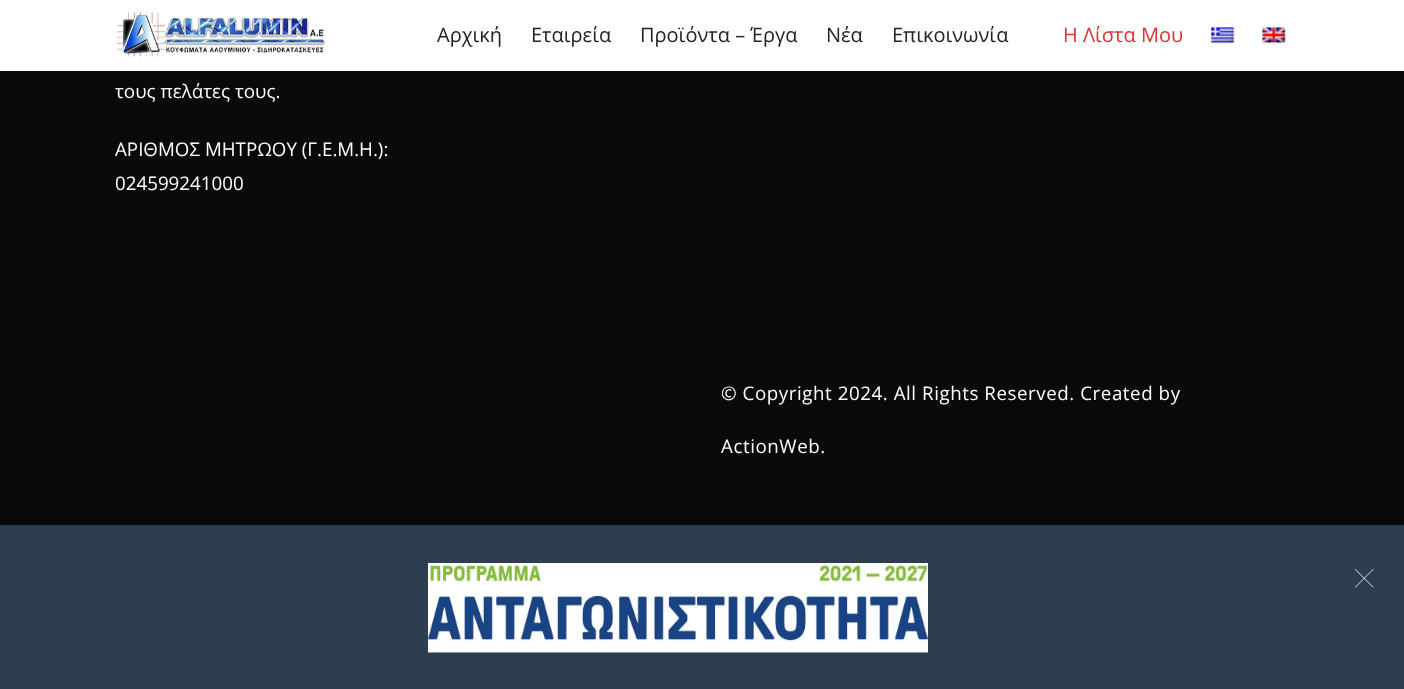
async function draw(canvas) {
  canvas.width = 1404;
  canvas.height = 689;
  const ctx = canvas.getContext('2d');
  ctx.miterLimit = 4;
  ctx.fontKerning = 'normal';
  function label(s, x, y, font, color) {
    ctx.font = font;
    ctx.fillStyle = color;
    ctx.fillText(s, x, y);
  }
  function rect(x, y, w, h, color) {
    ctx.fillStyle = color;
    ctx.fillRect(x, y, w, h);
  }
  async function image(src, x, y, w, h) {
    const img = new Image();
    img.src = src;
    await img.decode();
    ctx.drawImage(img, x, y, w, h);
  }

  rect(0, 0, 1404, 689, '#0a0a0a');
  rect(0, 0, 1404, 71, '#fff');
  await image('assets/img1.png', 117, 12, 209, 45);
  label('Αρχική', 437, 42, '20px Open Sans', '#232323');
  label('Εταιρεία', 531, 42, '20px Open Sans', '#232323');
  label('Προϊόντα – Έργα', 640, 42, '20px Open Sans', '#232323');
  label('Νέα', 826, 42, '20px Open Sans', '#232323');
  label('Επικοινωνία', 892, 42, '20px Open Sans', '#232323');
  label('H Λίστα Μου', 1063, 42, '20px Open Sans', '#d33');
  await image('assets/img2.png', 1211, 27, 24, 17);
  await image('assets/img3.png', 1262, 27, 24, 17);
  label('τους πελάτες τους.', 115, 98, '18.75px Open Sans', '#fff');
  label('ΑΡΙΘΜΟΣ ΜΗΤΡΩΟΥ (Γ.Ε.Μ.Η.):', 115, 156, '18.75px Open Sans', '#fff');
  label('024599241000', 115, 190, '18.75px Open Sans', '#fff');
  ctx.letterSpacing = '0.55px';
  label('© Copyright 2024. All Rights Reserved. Created by', 721, 400, '18.75px Open Sans', '#fff');
  label('ActionWeb.', 721, 453, '18.75px Open Sans', '#fff');
  rect(0, 525, 1404, 164, '#2d3e50');
  await image('assets/img4.png', 428, 563, 500, 90);
  await image('assets/img5.png', 1354, 569, 20, 19);
}

draw(document.querySelector('canvas'));
